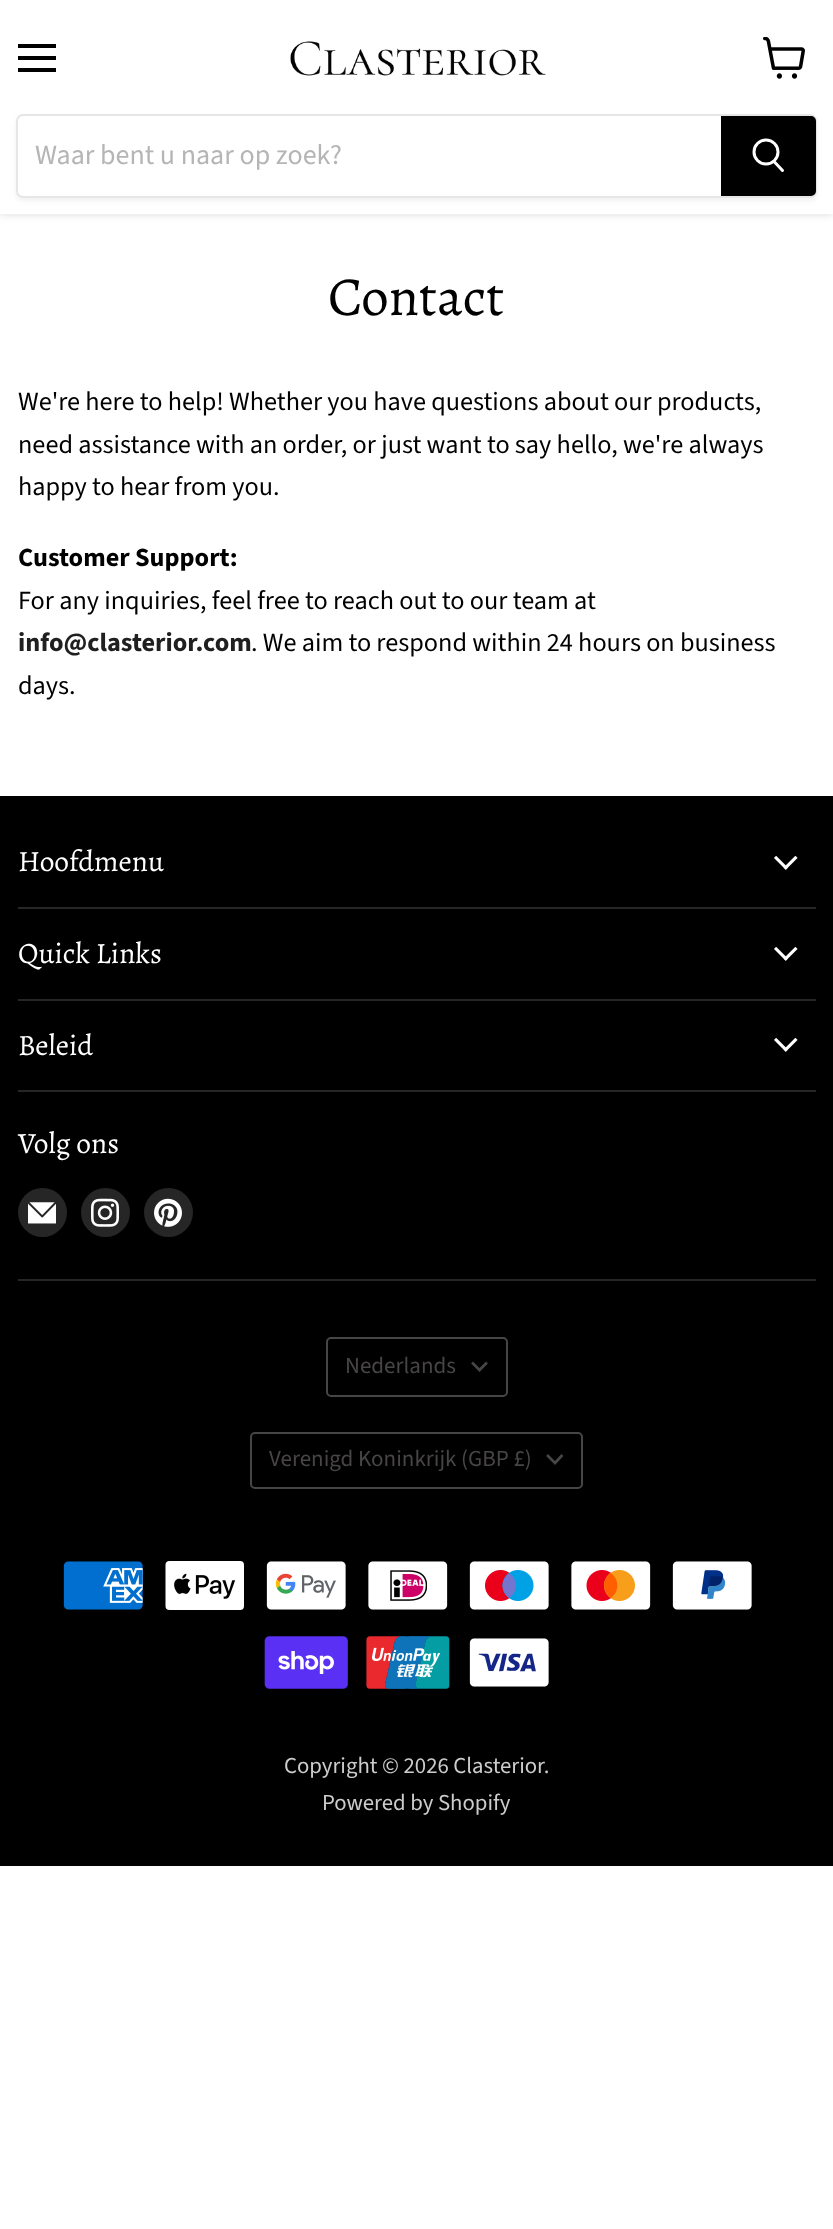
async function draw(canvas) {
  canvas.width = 833;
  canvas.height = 2229;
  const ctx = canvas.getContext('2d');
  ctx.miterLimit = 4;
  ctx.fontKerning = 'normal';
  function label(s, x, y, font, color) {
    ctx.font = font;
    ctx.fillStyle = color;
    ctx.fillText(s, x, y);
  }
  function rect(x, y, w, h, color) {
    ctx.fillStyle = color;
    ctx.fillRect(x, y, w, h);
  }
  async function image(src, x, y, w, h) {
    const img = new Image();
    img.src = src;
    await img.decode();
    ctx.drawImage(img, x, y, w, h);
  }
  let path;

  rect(0, 0, 833, 2229, '#fff');
  ctx.fillStyle = '#80808040';
  ctx.filter = 'blur(3.5px)';
  ctx.beginPath();
  ctx.rect(0, 2, 833, 213);
  ctx.fill();
  ctx.filter = 'none';
  rect(0, 0, 833, 214, '#fff');
  rect(18, 44, 38, 4, '#000');
  rect(18, 56, 38, 4, '#000');
  rect(18, 68, 38, 4, '#000');
  await image('assets/img1.png', 763, 37, 42, 42);
  await image('assets/img2.png', 290, 41, 256, 35);
  ctx.save();
  path = new Path2D('M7 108H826V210H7ZM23 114H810C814 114 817 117 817 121V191C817 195 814 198 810 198H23C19 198 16 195 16 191V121C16 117 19 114 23 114Z');
  ctx.clip(path, 'evenodd');
  ctx.fillStyle = '#8080801c';
  ctx.filter = 'blur(2.5px)';
  ctx.beginPath();
  ctx.roundRect(16, 117, 801, 84, 7);
  ctx.fill();
  ctx.filter = 'none';
  ctx.restore();
  ctx.beginPath();
  ctx.roundRect(17, 115, 799, 82, 6);
  ctx.strokeStyle = '#80808033';
  ctx.lineWidth = 2;
  ctx.stroke();
  label('Waar bent u naar op zoek?', 35, 164, '28px Source Sans Pro', '#b6b5b5');
  ctx.fillStyle = '#000';
  ctx.beginPath();
  ctx.roundRect(722, 117, 93, 78, [0, 4, 4, 0]);
  ctx.fill();
  ctx.strokeStyle = '#000';
  ctx.stroke();
  path = new Path2D('M782.5 170.5L774.5 162');
  ctx.strokeStyle = '#fff';
  ctx.lineWidth = 3;
  ctx.lineCap = 'round';
  ctx.stroke(path);
  ctx.beginPath();
  ctx.arc(766, 152, 12, 0, 2 * Math.PI);
  ctx.stroke();
  label('Contact', 328, 315, '55px Alegreya', '#000');
  label('We\'re here to help! Whether you have questions about our products,', 18, 410, '26.25px Source Sans Pro', '#000');
  label('need assistance with an order, or just want to say hello, we\'re always', 18, 453, '26.25px Source Sans Pro', '#000');
  label('happy to hear from you.', 18, 495, '26.25px Source Sans Pro', '#000');
  label('Customer Support:', 18, 566, 'bold 26.25px Source Sans Pro', '#000');
  label('For any inquiries, feel free to reach out to our team at', 18, 609, '26.25px Source Sans Pro', '#000');
  label('info@clasterior.com', 18, 651, 'bold 26.25px Source Sans Pro', '#202020');
  label('. We aim to respond within 24 hours on business', 251, 651, '26.25px Source Sans Pro', '#000');
  label('days.', 18, 694, '26.25px Source Sans Pro', '#000');
  rect(0, 796, 833, 1070, '#000');
  rect(18, 907, 798, 2, '#262626');
  label('Hoofdmenu', 18, 871, '29.5px Alegreya', '#fff');
  await image('assets/img3.png', 774, 856, 24, 14);
  rect(18, 999, 798, 2, '#262626');
  label('Quick Links', 18, 963, '29.5px Alegreya', '#fff');
  await image('assets/img3.png', 774, 947, 24, 14);
  rect(18, 1090, 798, 2, '#262626');
  label('Beleid', 18, 1055, '29.5px Alegreya', '#fff');
  await image('assets/img3.png', 774, 1038, 24, 14);
  rect(18, 1279, 798, 2, '#262626');
  label('Volg ons', 18, 1153, '29.5px Alegreya', '#fff');
  ctx.fillStyle = '#262626';
  ctx.beginPath();
  ctx.arc(42.5, 1212.5, 24.5, 0, 2 * Math.PI);
  ctx.fill();
  await image('assets/img4.png', 28, 1202, 28, 22);
  ctx.beginPath();
  ctx.arc(105.5, 1212.5, 24.5, 0, 2 * Math.PI);
  ctx.fill();
  await image('assets/img5.png', 91, 1198, 28, 29);
  ctx.beginPath();
  ctx.arc(168.5, 1212.5, 24.5, 0, 2 * Math.PI);
  ctx.fill();
  await image('assets/img6.png', 154, 1198, 28, 29);
  ctx.beginPath();
  ctx.roundRect(327, 1338, 180, 58, 4);
  ctx.strokeStyle = '#484545';
  ctx.lineWidth = 2;
  ctx.stroke();
  label('Nederlands', 345, 1373, '23px Source Sans Pro', '#484545');
  path = new Path2D('M479.5 1370L486 1363.5M479.5 1370L473 1363.5');
  ctx.lineWidth = 2.7;
  ctx.lineCap = 'square';
  ctx.stroke(path);
  ctx.beginPath();
  ctx.roundRect(251, 1433, 331, 55, 4);
  ctx.lineWidth = 2;
  ctx.stroke();
  label('Verenigd Koninkrijk (GBP £)', 269, 1466, '23px Source Sans Pro', '#484545');
  path = new Path2D('M555 1463L561.5 1456M555 1463L548 1456');
  ctx.lineWidth = 2.7;
  ctx.stroke(path);
  await image('assets/img7.png', 63, 1561, 80, 49);
  await image('assets/img8.png', 165, 1561, 79, 49);
  await image('assets/img9.png', 266, 1561, 80, 49);
  await image('assets/img10.png', 368, 1561, 80, 49);
  await image('assets/img11.png', 469, 1561, 80, 49);
  await image('assets/img12.png', 571, 1561, 80, 49);
  await image('assets/img13.png', 672, 1561, 80, 49);
  await image('assets/img14.png', 264, 1636, 84, 53);
  await image('assets/img15.png', 366, 1636, 84, 53);
  await image('assets/img16.png', 469, 1638, 80, 49);
  label('Copyright © 2026 Clasterior.', 284, 1773, '22.75px Source Sans Pro', '#ccc');
  label('Powered by Shopify', 322, 1810, '22.75px Source Sans Pro', '#ccc');
}

draw(document.querySelector('canvas'));
